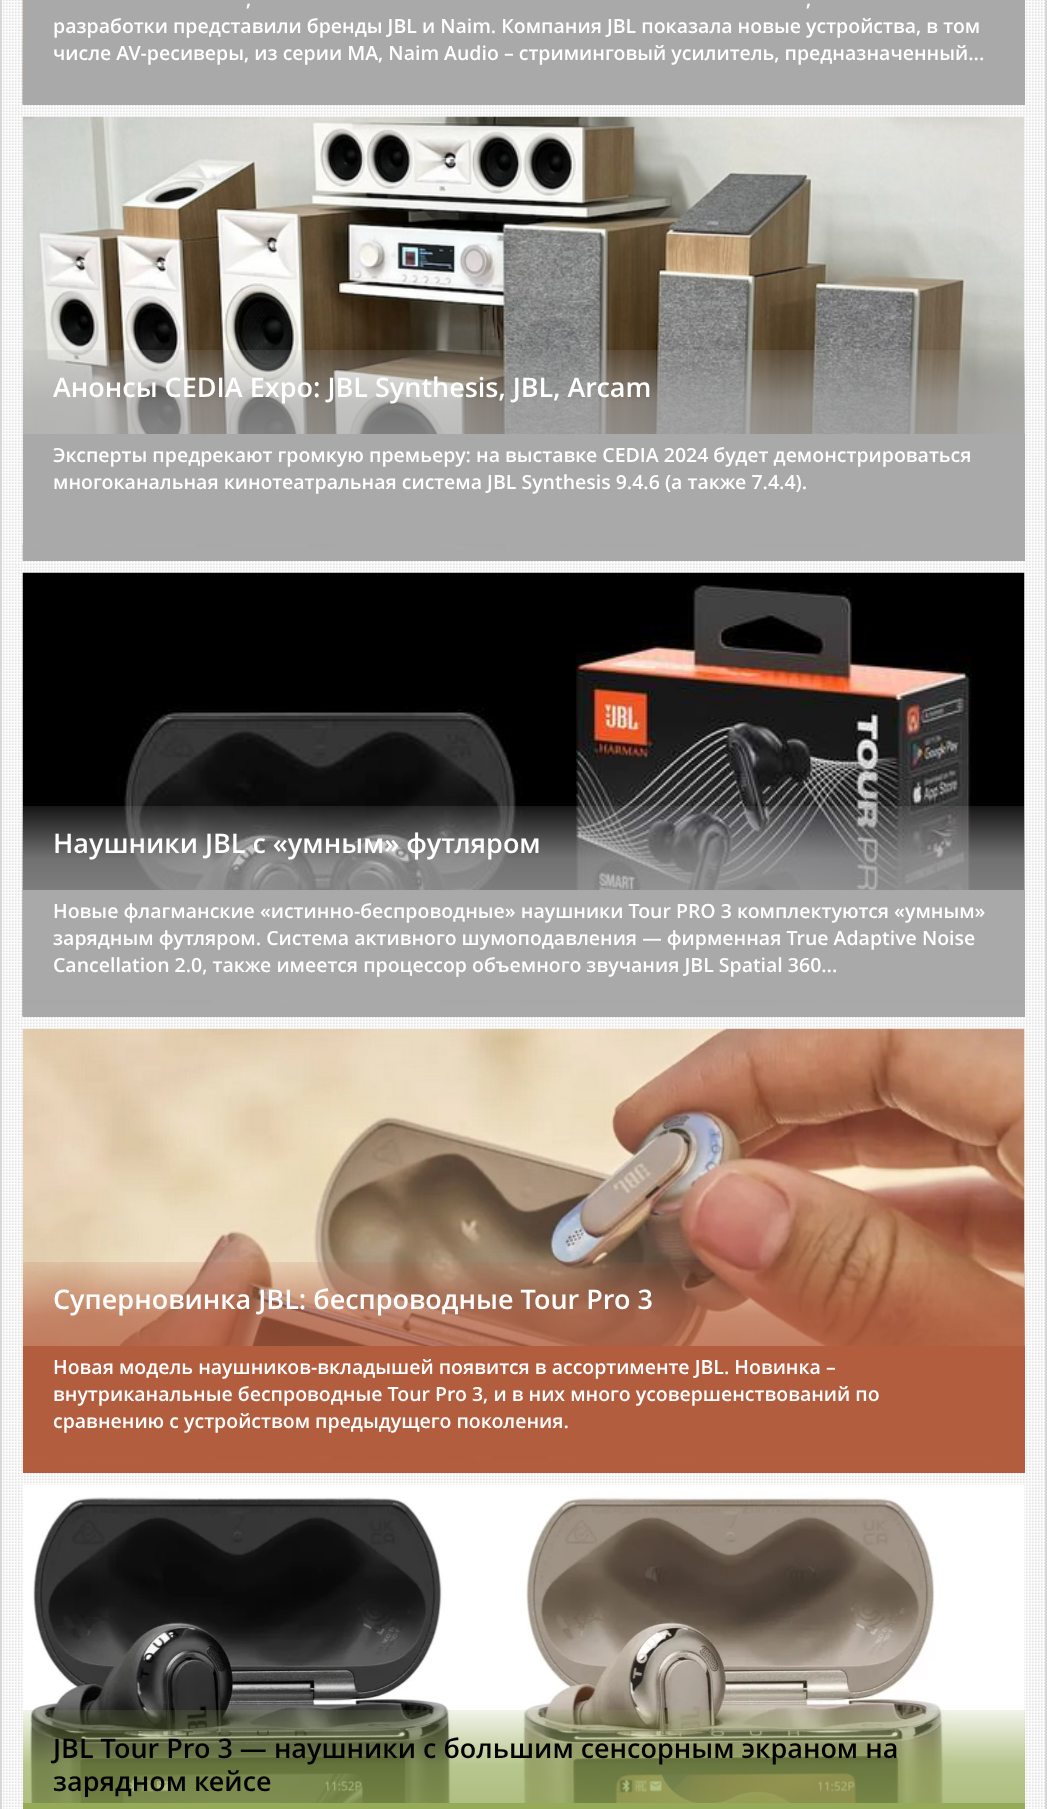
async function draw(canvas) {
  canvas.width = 1047;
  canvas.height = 1809;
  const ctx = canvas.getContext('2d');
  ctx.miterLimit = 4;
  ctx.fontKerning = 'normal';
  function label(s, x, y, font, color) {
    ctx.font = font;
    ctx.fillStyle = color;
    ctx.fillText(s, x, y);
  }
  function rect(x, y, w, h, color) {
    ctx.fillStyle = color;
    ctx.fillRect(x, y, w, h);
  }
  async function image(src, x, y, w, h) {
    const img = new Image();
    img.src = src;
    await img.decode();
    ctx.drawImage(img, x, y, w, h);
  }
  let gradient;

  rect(0, 0, 1047, 1809, '#fff');
  await image('assets/img1.png', 2, 0, 1043, 1809);
  ctx.strokeStyle = '#d7d7d7';
  ctx.lineWidth = 2;
  ctx.strokeRect(1, -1, 1045, 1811);
  await image('assets/img2.png', 22, 0, 1, 105);
  gradient = ctx.createLinearGradient(524, -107, 524, 105);
  gradient.addColorStop(0, '#a9a9a921');
  gradient.addColorStop(0.25, '#a9a9a9ab');
  gradient.addColorStop(0.95, '#a9a9a9');
  ctx.fillStyle = gradient;
  ctx.fillRect(23, 104, 1002, 1);
  rect(23, 0, 1002, 104, '#a9a9a9');
  label(',', 246, 6, '600 19.5px Open Sans', '#fff');
  label(',', 806, 6, '600 19.5px Open Sans', '#fff');
  label('разработки представили бренды JBL и Naim. Компания JBL показала новые устройства, в том', 53, 33, '600 19.5px Open Sans', '#fff');
  label('числе AV-ресиверы, из серии MA, Naim Audio – стриминговый усилитель, предназначенный...', 53, 60, '600 19.5px Open Sans', '#fff');
  await image('assets/img3.png', 22, 116, 1003, 445);
  gradient = ctx.createLinearGradient(524, 349, 524, 561);
  gradient.addColorStop(0, '#a9a9a921');
  gradient.addColorStop(0.25, '#a9a9a9ab');
  gradient.addColorStop(0.95, '#a9a9a9');
  ctx.fillStyle = gradient;
  ctx.fillRect(23, 350, 1002, 211);
  label('Анонсы CEDIA Expo: JBL Synthesis, JBL, Arcam', 53, 397, '600 27px Open Sans', '#fff');
  rect(23, 434, 1002, 110, '#a9a9a9');
  label('Эксперты предрекают громкую премьеру: на выставке CEDIA 2024 будет демонстрироваться', 53, 462, '600 19.5px Open Sans', '#fff');
  label('многоканальная кинотеатральная система JBL Synthesis 9.4.6 (а также 7.4.4).', 53, 489, '600 19.5px Open Sans', '#fff');
  await image('assets/img4.png', 22, 572, 1003, 445);
  gradient = ctx.createLinearGradient(524, 806, 524, 1017);
  gradient.addColorStop(0, '#a9a9a921');
  gradient.addColorStop(0.25, '#a9a9a9ab');
  gradient.addColorStop(0.95, '#a9a9a9');
  ctx.fillStyle = gradient;
  ctx.fillRect(23, 806, 1002, 211);
  label('Наушники JBL с «умным» футляром', 53, 853, '600 27px Open Sans', '#fff');
  rect(23, 890, 1002, 110, '#a9a9a9');
  label('Новые флагманские «истинно-беспроводные» наушники Tour PRO 3 комплектуются «умным»', 53, 918, '600 19.5px Open Sans', '#fff');
  label('зарядным футляром. Система активного шумоподавления — фирменная True Adaptive Noise', 53, 945, '600 19.5px Open Sans', '#fff');
  label('Cancellation 2.0, также имеется процессор объемного звучания JBL Spatial 360...', 53, 972, '600 19.5px Open Sans', '#fff');
  await image('assets/img5.png', 22, 1028, 1003, 445);
  gradient = ctx.createLinearGradient(524, 1262, 524, 1473);
  gradient.addColorStop(0, '#b35d3f21');
  gradient.addColorStop(0.25, '#b35d3fab');
  gradient.addColorStop(0.95, '#b35d3f');
  ctx.fillStyle = gradient;
  ctx.fillRect(23, 1262, 1002, 211);
  label('Суперновинка JBL: беспроводные Tour Pro 3', 53, 1309, '600 27px Open Sans', '#fff');
  rect(23, 1346, 1002, 110, '#b35d3f');
  label('Новая модель наушников-вкладышей появится в ассортименте JBL. Новинка –', 53, 1374, '600 19.5px Open Sans', '#fff');
  label('внутриканальные беспроводные Tour Pro 3, и в них много усовершенствований по', 53, 1401, '600 19.5px Open Sans', '#fff');
  label('сравнению с устройством предыдущего поколения.', 53, 1428, '600 19.5px Open Sans', '#fff');
  await image('assets/img6.png', 22, 1484, 1003, 325);
  gradient = ctx.createLinearGradient(524, 1710, 524, 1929);
  gradient.addColorStop(0, '#95ab5821');
  gradient.addColorStop(0.25, '#95ab58ab');
  gradient.addColorStop(0.95, '#95ab58');
  ctx.fillStyle = gradient;
  ctx.fillRect(23, 1710, 1002, 93);
  label('JBL Tour Pro 3 — наушники с большим сенсорным экраном на', 53, 1758, '600 27px Open Sans', '#000');
  ctx.save();
  ctx.beginPath();
  ctx.rect(23, 1731, 1002, 66);
  ctx.clip();
  label('зарядном кейсе', 53, 1791, '600 27px Open Sans', '#000');
  ctx.restore();
  rect(23, 1803, 1002, 6, '#95ab58');
}

draw(document.querySelector('canvas'));
